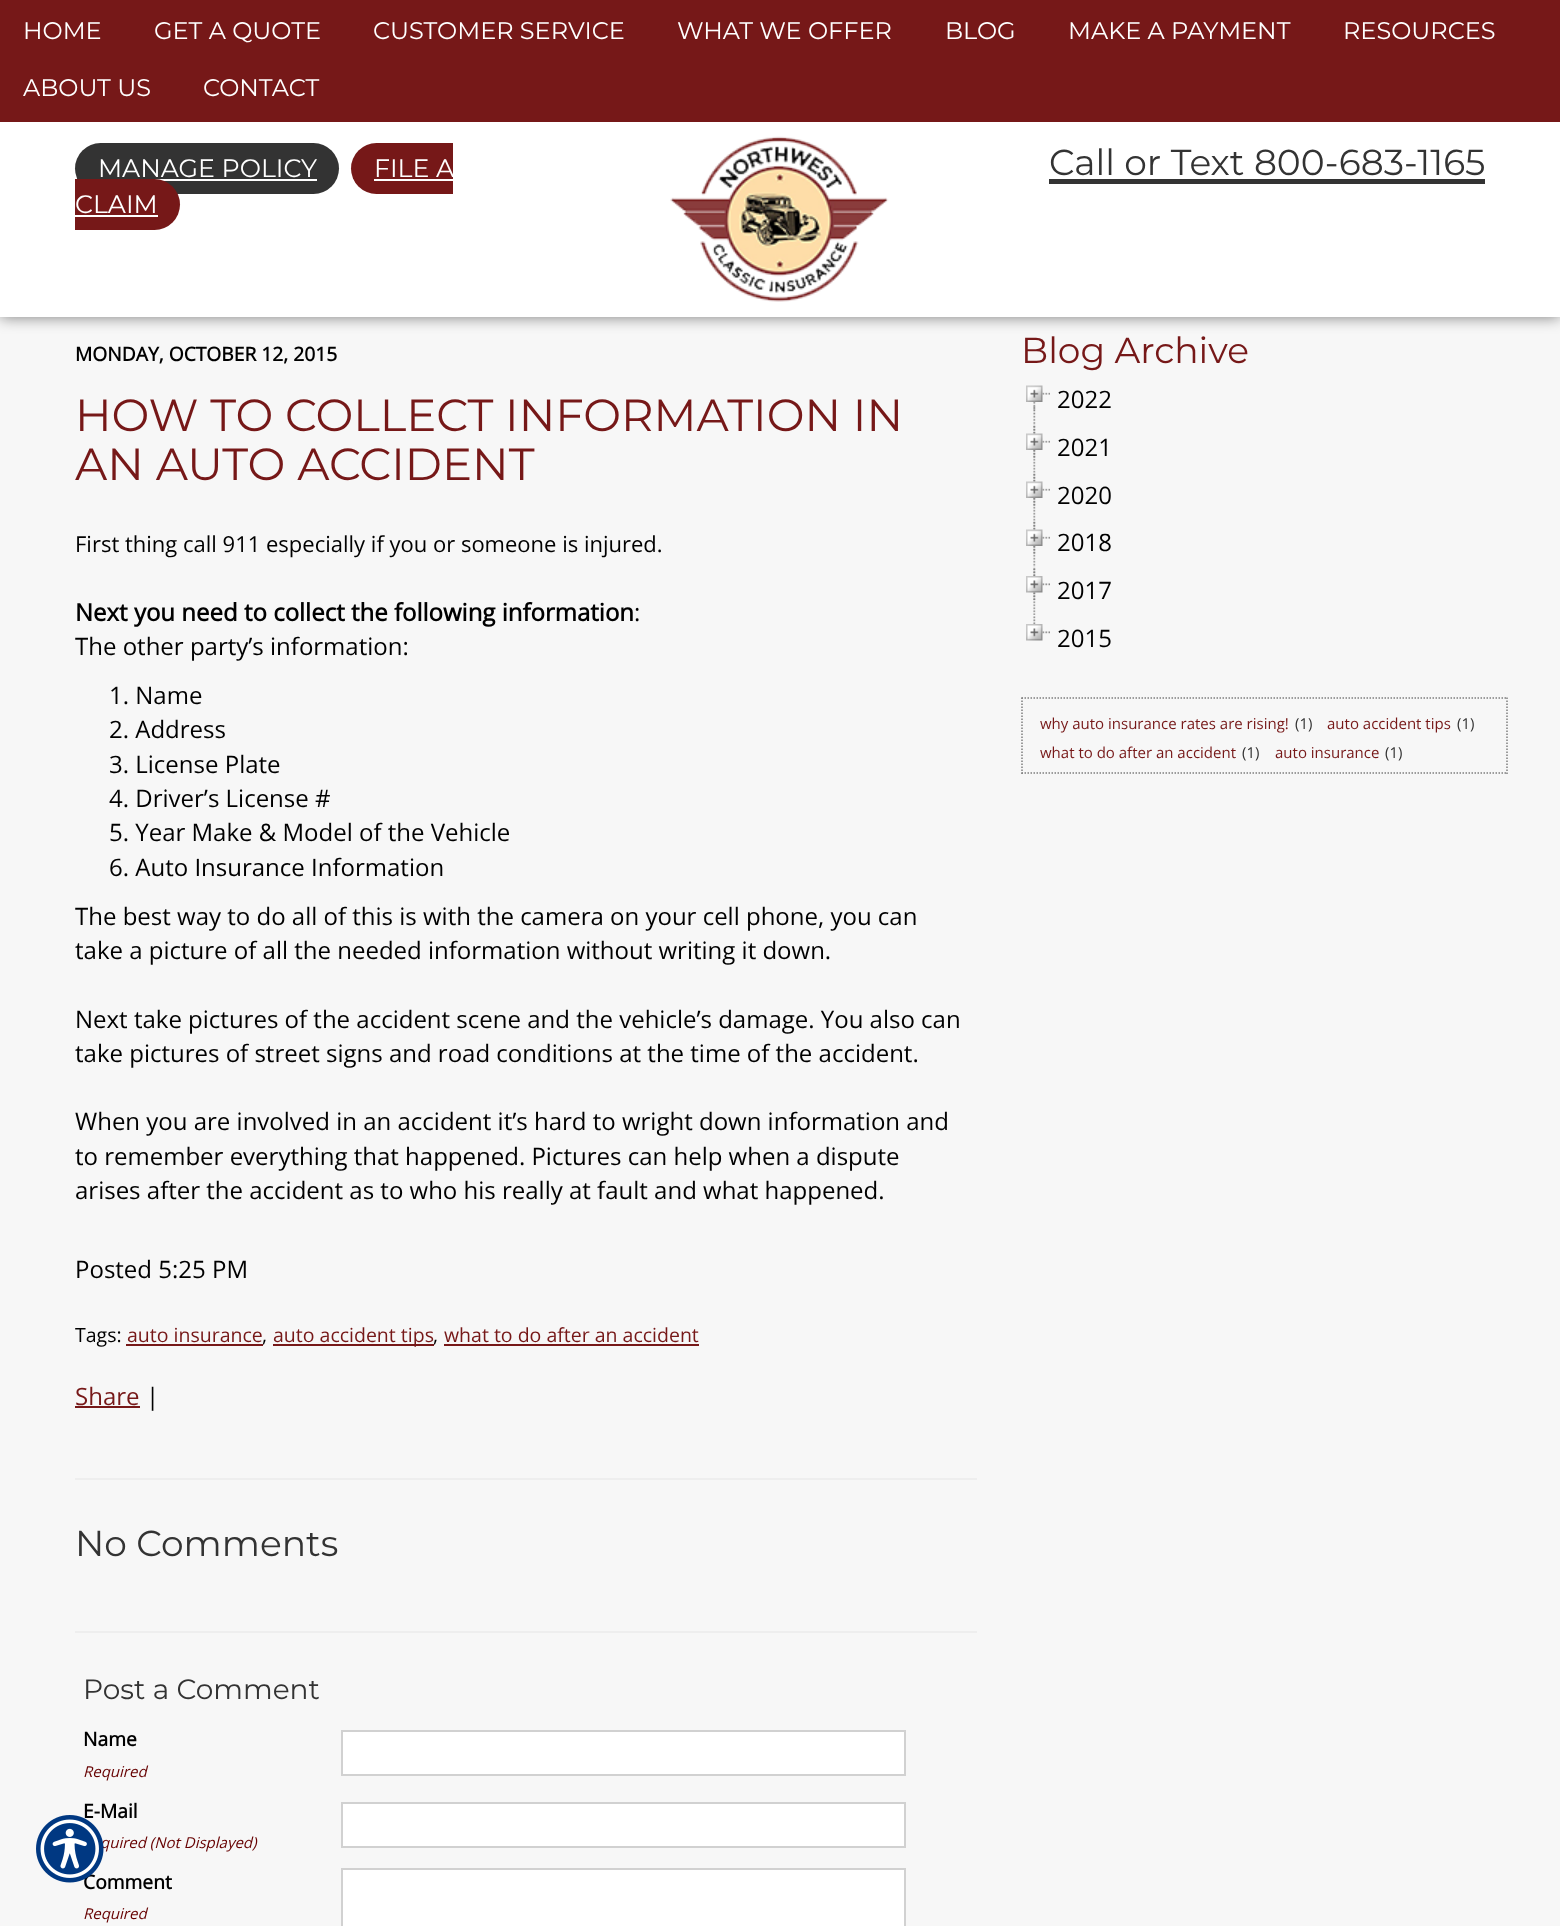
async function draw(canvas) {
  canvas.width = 1560;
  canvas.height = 1926;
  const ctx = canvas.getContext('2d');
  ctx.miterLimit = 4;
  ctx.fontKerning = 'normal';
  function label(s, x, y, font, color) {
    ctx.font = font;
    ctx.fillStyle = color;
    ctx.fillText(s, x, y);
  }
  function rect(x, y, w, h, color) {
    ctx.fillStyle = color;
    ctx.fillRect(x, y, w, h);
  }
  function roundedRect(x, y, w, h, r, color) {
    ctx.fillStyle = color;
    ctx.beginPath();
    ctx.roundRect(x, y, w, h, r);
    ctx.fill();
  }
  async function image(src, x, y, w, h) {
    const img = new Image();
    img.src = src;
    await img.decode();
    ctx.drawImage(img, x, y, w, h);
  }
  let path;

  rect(0, 0, 1560, 1926, '#f7f7f7');
  ctx.fillStyle = '#00000080';
  ctx.filter = 'blur(7.5px)';
  ctx.beginPath();
  ctx.rect(0, 0, 1560, 317);
  ctx.fill();
  ctx.filter = 'none';
  rect(0, 122, 1560, 195, '#fff');
  rect(0, 0, 1560, 122, '#761818');
  label('HOME', 23, 39, '100 24px Montserrat', '#fff');
  label('GET A QUOTE', 154, 39, '100 24px Montserrat', '#fff');
  label('CUSTOMER SERVICE', 373, 39, '100 24px Montserrat', '#fff');
  label('WHAT WE OFFER', 677, 39, '100 24px Montserrat', '#fff');
  label('BLOG', 945, 39, '100 24px Montserrat', '#fff');
  label('MAKE A PAYMENT', 1068, 39, '100 24px Montserrat', '#fff');
  label('RESOURCES', 1343, 39, '100 24px Montserrat', '#fff');
  label('ABOUT US', 23, 96, '100 24px Montserrat', '#fff');
  label('CONTACT', 203, 96, '100 24px Montserrat', '#fff');
  roundedRect(75, 143, 264, 51, 25.5, '#333');
  label('MANAGE POLICY', 98, 177, '100 25.25px Montserrat', '#fff');
  rect(155, 179, 162, 2, '#fff');
  ctx.fillStyle = '#761818';
  ctx.beginPath();
  ctx.roundRect(351, 143, 102, 51, [25.5, 0, 0, 25.5]);
  ctx.fill();
  label('FILE A', 374, 177, '100 25.25px Montserrat', '#fff');
  rect(374, 179, 79, 2, '#fff');
  ctx.fillStyle = '#761818';
  ctx.beginPath();
  ctx.roundRect(75, 179, 105, 51, [0, 25.5, 25.5, 0]);
  ctx.fill();
  label('CLAIM', 75, 213, '100 25.25px Montserrat', '#fff');
  rect(75, 215, 83, 2, '#fff');
  await image('assets/img1.png', 670, 136, 219, 166);
  label('Call or Text 800-683-1165', 1049, 175, '100 36px Montserrat', '#333');
  rect(1049, 179, 436, 5, '#333');
  label('MONDAY, OCTOBER 12, 2015', 75, 361, 'bold 19.25px Open Sans', '#000');
  label('HOW TO COLLECT INFORMATION IN', 75, 431, '100 45px Montserrat', '#761818');
  label('AN AUTO ACCIDENT', 75, 480, '100 45px Montserrat', '#761818');
  label('First thing call 911 especially if you or someone is injured.', 75, 552, '22px Open Sans', '#000');
  label('Next you need to collect the following information', 75, 621, 'bold 24px Open Sans', '#000');
  label(':', 634, 621, '24px Open Sans', '#000');
  label('The other party’s information:', 75, 655, '24px Open Sans', '#000');
  label('1. Name', 109, 704, '24px Open Sans', '#000');
  label('2. Address', 109, 738, '24px Open Sans', '#000');
  label('3. License Plate', 109, 773, '24px Open Sans', '#000');
  label('4. Driver’s License #', 109, 807, '24px Open Sans', '#000');
  label('5. Year Make & Model of the Vehicle', 109, 841, '24px Open Sans', '#000');
  label('6. Auto Insurance Information', 109, 876, '24px Open Sans', '#000');
  label('The best way to do all of this is with the camera on your cell phone, you can', 75, 925, '24px Open Sans', '#000');
  label('take a picture of all the needed information without writing it down.', 75, 959, '24px Open Sans', '#000');
  label('Next take pictures of the accident scene and the vehicle’s damage. You also can', 75, 1028, '24px Open Sans', '#000');
  label('take pictures of street signs and road conditions at the time of the accident.', 75, 1062, '24px Open Sans', '#000');
  label('When you are involved in an accident it’s hard to wright down information and', 75, 1130, '24px Open Sans', '#000');
  label('to remember everything that happened. Pictures can help when a dispute', 75, 1165, '24px Open Sans', '#000');
  label('arises after the accident as to who his really at fault and what happened.', 75, 1199, '24px Open Sans', '#000');
  label('Posted 5:25 PM', 75, 1278, '24px Open Sans', '#000');
  label('Tags:', 75, 1342, '19.5px Open Sans', '#000');
  label('auto insurance', 127, 1342, '19.5px Open Sans', '#761818');
  label(',', 262, 1342, '19.5px Open Sans', '#000');
  rect(126, 1344, 137, 2, '#761818');
  rect(273, 1344, 161, 2, '#761818');
  label('auto accident tips', 273, 1342, '19.5px Open Sans', '#761818');
  label(',', 433, 1342, '19.5px Open Sans', '#000');
  rect(444, 1344, 255, 2, '#761818');
  label('what to do after an accident', 444, 1342, '19.5px Open Sans', '#761818');
  label('Share', 75, 1405, '24px Open Sans', '#761818');
  rect(75, 1406, 65, 2, '#761818');
  label('|', 146, 1405, '24px Open Sans', '#000');
  rect(75, 1478, 902, 2, '#eee');
  label('No Comments', 75, 1556, '100 36px Montserrat', '#333');
  rect(75, 1631, 902, 2, '#eee');
  label('Post a Comment', 83, 1699, '100 28px Montserrat', '#333');
  label('Name', 83, 1746, 'bold 19.25px Open Sans', '#000');
  label('Required', 83, 1777, 'italic 15px Open Sans', '#600');
  ctx.fillStyle = '#fff';
  ctx.beginPath();
  ctx.rect(342, 1731, 563, 44);
  ctx.fill();
  ctx.strokeStyle = '#d1d1d1';
  ctx.lineWidth = 2;
  ctx.stroke();
  label('E-Mail', 83, 1818, 'bold 19.25px Open Sans', '#000');
  label('quired (Not Displayed)', 100, 1848, 'italic 15px Open Sans', '#600');
  ctx.fillStyle = '#fff';
  ctx.beginPath();
  ctx.rect(342, 1803, 563, 44);
  ctx.fill();
  ctx.stroke();
  label('Comment', 83, 1889, 'bold 19.25px Open Sans', '#000');
  label('Required', 83, 1919, 'italic 15px Open Sans', '#600');
  ctx.fillStyle = '#fff';
  ctx.beginPath();
  ctx.rect(342, 1869, 563, 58);
  ctx.fill();
  ctx.stroke();
  label('Blog Archive', 1021, 363, '100 36px Montserrat', '#761818');
  await image('assets/img2.png', 1033, 406, 3, 18);
  await image('assets/img3.png', 1033, 392, 17, 18);
  await image('assets/img4.png', 1026, 385, 17, 17);
  label('2022', 1057, 408, '24px Open Sans', '#000');
  await image('assets/img5.png', 1033, 424, 3, 49);
  await image('assets/img6.png', 1033, 425, 17, 33);
  await image('assets/img7.png', 1026, 433, 17, 17);
  label('2021', 1057, 456, '24px Open Sans', '#000');
  await image('assets/img8.png', 1033, 472, 3, 49);
  await image('assets/img6.png', 1033, 473, 17, 33);
  await image('assets/img7.png', 1026, 481, 17, 17);
  label('2020', 1057, 504, '24px Open Sans', '#000');
  await image('assets/img9.png', 1033, 520, 3, 47);
  await image('assets/img6.png', 1033, 521, 17, 33);
  await image('assets/img7.png', 1026, 529, 17, 17);
  label('2018', 1057, 551, '24px Open Sans', '#000');
  await image('assets/img10.png', 1033, 567, 3, 48);
  await image('assets/img11.png', 1033, 568, 17, 32);
  await image('assets/img12.png', 1026, 576, 17, 17);
  label('2017', 1057, 599, '24px Open Sans', '#000');
  await image('assets/img13.png', 1033, 616, 17, 18);
  await image('assets/img14.png', 1026, 624, 17, 17);
  label('2015', 1057, 647, '24px Open Sans', '#000');
  path = new Path2D('M1021.5 698H1507.5');
  ctx.strokeStyle = '#7f7f7f';
  ctx.lineWidth = 1.5;
  ctx.setLineDash([1.5, 1.5]);
  ctx.stroke(path);
  path = new Path2D('M1507 697.5V774');
  ctx.stroke(path);
  path = new Path2D('M1021.5 773H1507.5');
  ctx.stroke(path);
  path = new Path2D('M1022 697.5V774');
  ctx.stroke(path);
  label('why auto insurance rates are rising!', 1040, 729, '15px Open Sans', '#761818');
  label('(1)', 1295, 729, '15px Open Sans', '#333');
  label('auto accident tips', 1327, 729, '15px Open Sans', '#761818');
  label('(1)', 1457, 729, '15px Open Sans', '#333');
  label('what to do after an accident', 1040, 758, '15px Open Sans', '#761818');
  label('(1)', 1242, 758, '15px Open Sans', '#333');
  label('auto insurance', 1275, 758, '15px Open Sans', '#761818');
  label('(1)', 1385, 758, '15px Open Sans', '#333');
  await image('assets/img15.png', 36, 1815, 68, 68);
}

draw(document.querySelector('canvas'));
